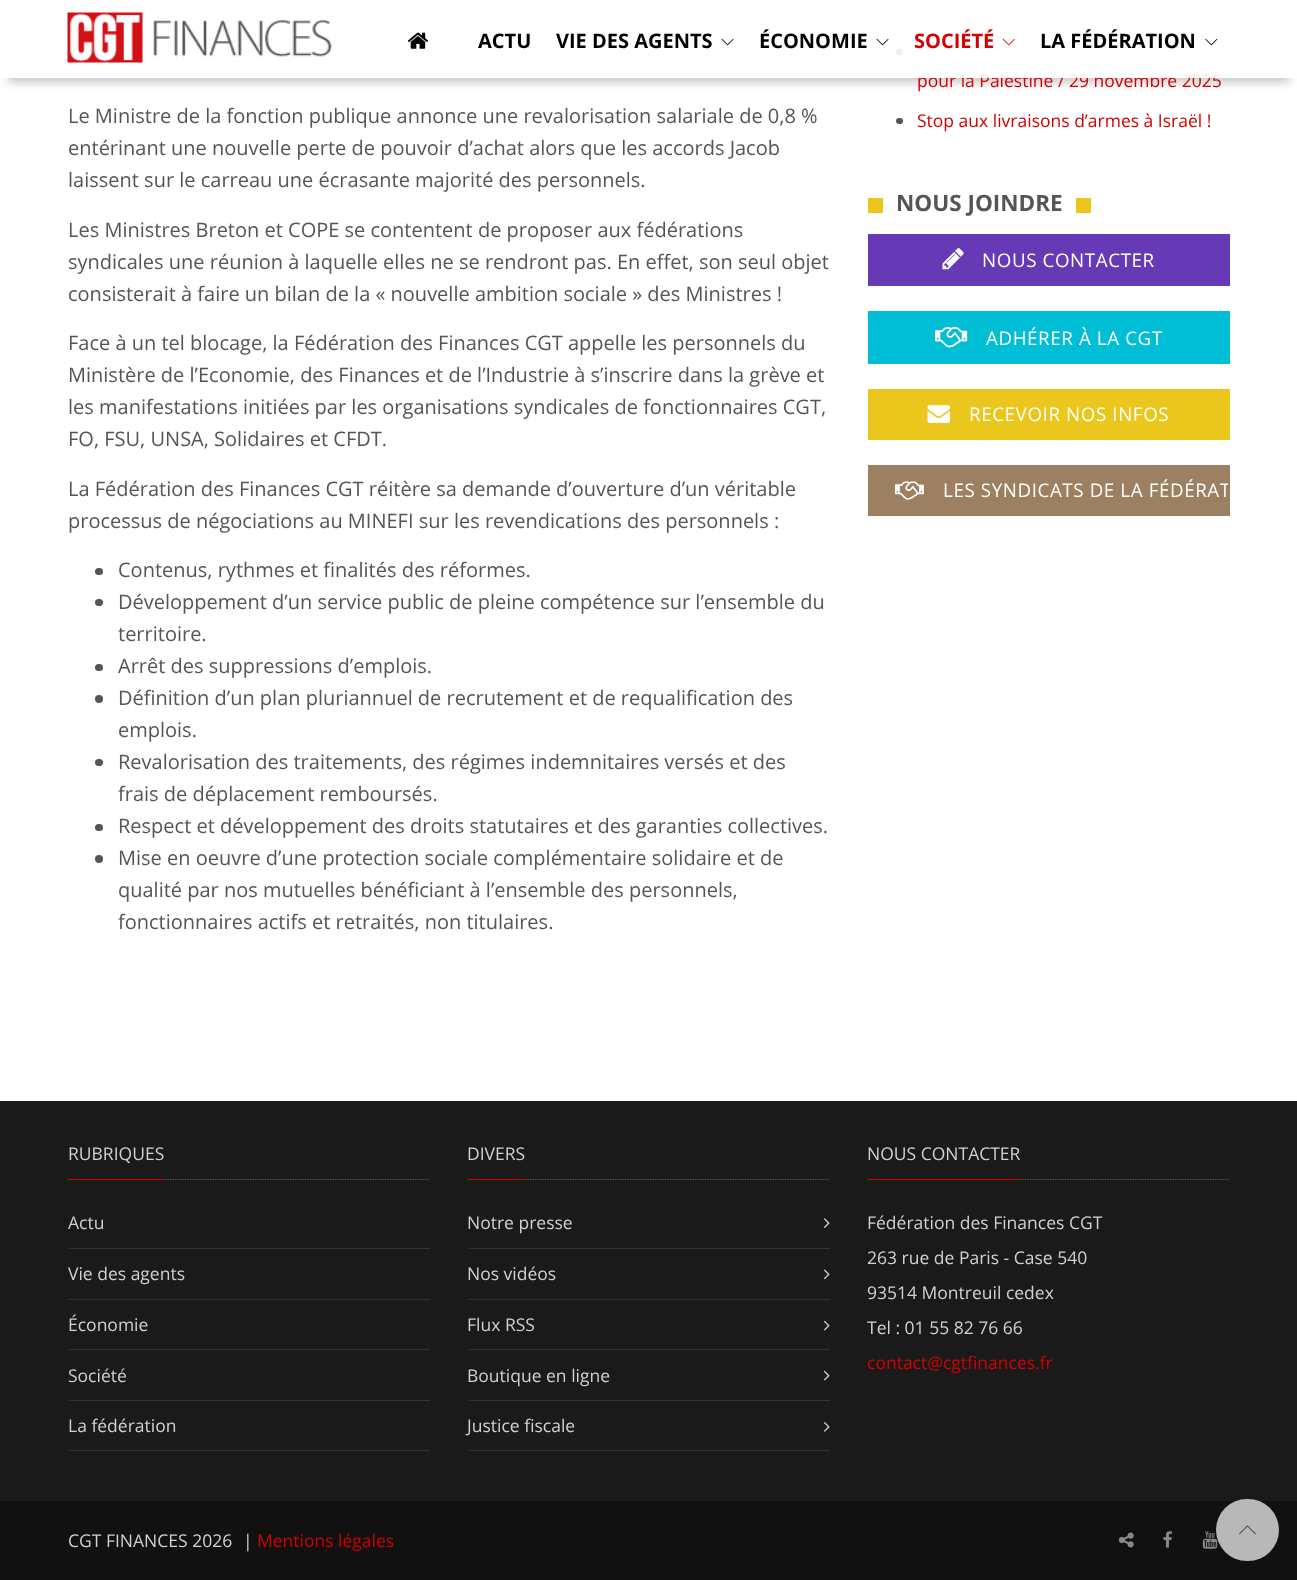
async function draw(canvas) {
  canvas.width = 1297;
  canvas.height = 1580;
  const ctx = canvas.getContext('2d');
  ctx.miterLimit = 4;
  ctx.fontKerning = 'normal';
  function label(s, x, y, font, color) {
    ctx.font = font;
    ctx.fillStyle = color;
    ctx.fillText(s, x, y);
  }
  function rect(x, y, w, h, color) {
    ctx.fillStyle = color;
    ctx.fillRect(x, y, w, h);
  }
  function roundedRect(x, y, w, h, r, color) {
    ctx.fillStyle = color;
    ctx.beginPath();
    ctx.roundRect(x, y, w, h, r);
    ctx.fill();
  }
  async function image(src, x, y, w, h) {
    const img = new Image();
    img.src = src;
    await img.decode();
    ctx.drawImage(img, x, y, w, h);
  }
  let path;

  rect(0, 0, 1297, 1580, '#fff');
  roundedRect(896, 49, 7, 6, 3, '#555');
  ctx.save();
  path = new Path2D('M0 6H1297V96H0ZM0-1H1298V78H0Z');
  ctx.clip(path, 'evenodd');
  ctx.fillStyle = '#00000033';
  ctx.filter = 'blur(4px)';
  ctx.beginPath();
  ctx.rect(8, 19, 1282, 64);
  ctx.fill();
  ctx.filter = 'none';
  ctx.restore();
  label('pour la Palestine / 29 novembre 2025', 917, 87, '17.5px Open Sans', '#d40000');
  rect(3, 49, 1292, 29, '#ffffffe6');
  await image('assets/img1.png', 67, 12, 267, 51);
  await image('assets/img2.png', 407, 32, 21, 17);
  label('ACTU', 478, 48, 'bold 20px Open Sans', '#000');
  label('VIE DES AGENTS', 556, 48, 'bold 20px Open Sans', '#000');
  await image('assets/img3.png', 721, 38, 13, 8);
  label('ÉCONOMIE', 759, 48, 'bold 20px Open Sans', '#000');
  await image('assets/img4.png', 876, 38, 13, 8);
  label('SOCIÉTÉ', 914, 48, 'bold 20px Open Sans', '#d40000');
  await image('assets/img5.png', 1002, 38, 13, 8);
  label('LA FÉDÉRATION', 1040, 48, 'bold 20px Open Sans', '#000');
  await image('assets/img6.png', 1205, 38, 13, 8);
  label('Le Ministre de la fonction publique annonce une revalorisation salariale de 0,8 %', 68, 123, '20px Open Sans', '#555');
  label('entérinant une nouvelle perte de pouvoir d’achat alors que les accords Jacob', 68, 155, '20px Open Sans', '#555');
  label('laissent sur le carreau une écrasante majorité des personnels.', 68, 187, '20px Open Sans', '#555');
  label('Les Ministres Breton et COPE se contentent de proposer aux fédérations', 68, 237, '20px Open Sans', '#555');
  label('syndicales une réunion à laquelle elles ne se rendront pas. En effet, son seul objet', 68, 269, '20px Open Sans', '#555');
  label('consisterait à faire un bilan de la « nouvelle ambition sociale » des Ministres !', 68, 301, '20px Open Sans', '#555');
  label('Face à un tel blocage, la Fédération des Finances CGT appelle les personnels du', 68, 350, '20px Open Sans', '#555');
  label('Ministère de l’Economie, des Finances et de l’Industrie à s’inscrire dans la grève et', 68, 382, '20px Open Sans', '#555');
  label('les manifestations initiées par les organisations syndicales de fonctionnaires CGT,', 68, 414, '20px Open Sans', '#555');
  label('FO, FSU, UNSA, Solidaires et CFDT.', 68, 446, '20px Open Sans', '#555');
  label('La Fédération des Finances CGT réitère sa demande d’ouverture d’un véritable', 68, 496, '20px Open Sans', '#555');
  label('processus de négociations au MINEFI sur les revendications des personnels :', 68, 528, '20px Open Sans', '#555');
  roundedRect(95, 568, 8, 7, 3.5, '#555');
  label('Contenus, rythmes et finalités des réformes.', 118, 577, '20px Open Sans', '#555');
  roundedRect(95, 599, 8, 7, 3.5, '#555');
  label('Développement d’un service public de pleine compétence sur l’ensemble du', 118, 609, '20px Open Sans', '#555');
  label('territoire.', 118, 641, '20px Open Sans', '#555');
  roundedRect(95, 664, 8, 7, 3.5, '#555');
  label('Arrêt des suppressions d’emplois.', 118, 673, '20px Open Sans', '#555');
  ctx.beginPath();
  ctx.arc(99, 699, 4, 0, 2 * Math.PI);
  ctx.fill();
  label('Définition d’un plan pluriannuel de recrutement et de requalification des', 118, 705, '20px Open Sans', '#555');
  label('emplois.', 118, 737, '20px Open Sans', '#555');
  roundedRect(95, 759, 8, 7, 3.5, '#555');
  label('Revalorisation des traitements, des régimes indemnitaires versés et des', 118, 769, '20px Open Sans', '#555');
  label('frais de déplacement remboursés.', 118, 801, '20px Open Sans', '#555');
  roundedRect(95, 824, 8, 7, 3.5, '#555');
  label('Respect et développement des droits statutaires et des garanties collectives.', 118, 833, '20px Open Sans', '#555');
  ctx.beginPath();
  ctx.arc(99, 859, 4, 0, 2 * Math.PI);
  ctx.fill();
  label('Mise en oeuvre d’une protection sociale complémentaire solidaire et de', 118, 865, '20px Open Sans', '#555');
  label('qualité par nos mutuelles bénéficiant à l’ensemble des personnels,', 118, 897, '20px Open Sans', '#555');
  label('fonctionnaires actifs et retraités, non titulaires.', 118, 929, '20px Open Sans', '#555');
  roundedRect(896, 118, 7, 6, 3, '#555');
  label('Stop aux livraisons d’armes à Israël !', 917, 127, '17.5px Open Sans', '#d40000');
  rect(868, 198, 15, 15, '#ebc71d');
  label('NOUS JOINDRE', 896, 211, 'bold 22.5px Open Sans', '#555');
  rect(1076, 198, 15, 15, '#ebc71d');
  rect(868, 234, 362, 52, '#6639b6');
  await image('assets/img7.png', 942, 248, 22, 22);
  ctx.letterSpacing = '0.6px';
  label('NOUS CONTACTER', 982, 267, '18.75px Open Sans', '#fff');
  rect(868, 311, 362, 53, '#00bed6');
  await image('assets/img8.png', 935, 327, 33, 21);
  label('ADHÉRER À LA CGT', 986, 345, '18.75px Open Sans', '#fff');
  rect(868, 389, 362, 51, '#ebc71d');
  await image('assets/img9.png', 927, 405, 23, 18);
  label('RECEVOIR NOS INFOS', 969, 421, '18.75px Open Sans', '#fff');
  rect(868, 465, 362, 51, '#9c8061');
  await image('assets/img10.png', 895, 481, 29, 19);
  ctx.save();
  ctx.beginPath();
  ctx.rect(870, 468, 358, 46);
  ctx.clip();
  label('LES SYNDICATS DE LA FÉDÉRAT', 943, 497, '18.75px Open Sans', '#fff');
  ctx.restore();
  rect(0, 1101, 1297, 400, '#1a1a1a');
  path = new Path2D('M67.5 1179.5H430');
  ctx.strokeStyle = '#5f5f5f';
  ctx.lineWidth = 1.2;
  ctx.setLineDash([1.25, 1.25]);
  ctx.stroke(path);
  rect(68, 1179, 96, 1, '#d40000');
  ctx.letterSpacing = '0px';
  label('RUBRIQUES', 68, 1160, '17.5px Open Sans', '#d1d1d1');
  label('Actu', 68, 1229, '17.5px Open Sans', '#d1d1d1');
  rect(68, 1248, 362, 1, '#313131');
  label('Vie des agents', 68, 1280, '17.5px Open Sans', '#d1d1d1');
  rect(68, 1299, 362, 1, '#313131');
  label('Économie', 68, 1331, '17.5px Open Sans', '#d1d1d1');
  rect(68, 1349, 362, 1, '#313131');
  label('Société', 68, 1382, '17.5px Open Sans', '#d1d1d1');
  rect(68, 1400, 362, 1, '#313131');
  label('La fédération', 68, 1432, '17.5px Open Sans', '#d1d1d1');
  rect(68, 1450, 362, 1, '#313131');
  path = new Path2D('M467.5 1179.5H830');
  ctx.stroke(path);
  rect(468, 1179, 58, 1, '#d40000');
  label('DIVERS', 467, 1160, '17.5px Open Sans', '#d1d1d1');
  rect(468, 1248, 362, 1, '#313131');
  label('Notre presse', 467, 1229, '17.5px Open Sans', '#d1d1d1');
  await image('assets/img11.png', 823, 1218, 7, 10);
  rect(468, 1299, 362, 1, '#313131');
  label('Nos vidéos', 467, 1280, '17.5px Open Sans', '#d1d1d1');
  await image('assets/img12.png', 823, 1269, 7, 11);
  rect(468, 1349, 362, 1, '#313131');
  label('Flux RSS', 467, 1331, '17.5px Open Sans', '#d1d1d1');
  await image('assets/img13.png', 823, 1320, 7, 11);
  rect(468, 1400, 362, 1, '#313131');
  label('Boutique en ligne', 467, 1382, '17.5px Open Sans', '#d1d1d1');
  await image('assets/img13.png', 823, 1370, 7, 11);
  rect(468, 1450, 362, 1, '#313131');
  label('Justice fiscale', 467, 1432, '17.5px Open Sans', '#d1d1d1');
  await image('assets/img14.png', 823, 1422, 7, 10);
  path = new Path2D('M867.5 1179.5H1230');
  ctx.stroke(path);
  rect(868, 1179, 153, 1, '#d40000');
  label('NOUS CONTACTER', 867, 1160, '17.5px Open Sans', '#d1d1d1');
  label('Fédération des Finances CGT', 867, 1229, '17.5px Open Sans', '#d1d1d1');
  label('263 rue de Paris - Case 540', 867, 1264, '17.5px Open Sans', '#d1d1d1');
  label('93514 Montreuil cedex', 867, 1299, '17.5px Open Sans', '#d1d1d1');
  label('Tel : 01 55 82 76 66', 867, 1334, '17.5px Open Sans', '#d1d1d1');
  label('contact@cgtfinances.fr', 867, 1369, '17.5px Open Sans', '#d40000');
  rect(0, 1501, 1297, 79, '#111');
  label('CGT FINANCES 2026', 68, 1547, '17.5px Open Sans', '#d1d1d1');
  label('|', 243, 1547, '17.5px Open Sans', '#d1d1d1');
  label('Mentions légales', 257, 1547, '17.5px Open Sans', '#d40000');
  await image('assets/img15.png', 1118, 1532, 16, 16);
  await image('assets/img16.png', 1163, 1531, 9, 17);
  await image('assets/img17.png', 1202, 1531, 16, 18);
  roundedRect(1216, 1499, 63, 62, 31, '#ffffffb3');
  await image('assets/img18.png', 1239, 1525, 17, 10);
}

draw(document.querySelector('canvas'));
